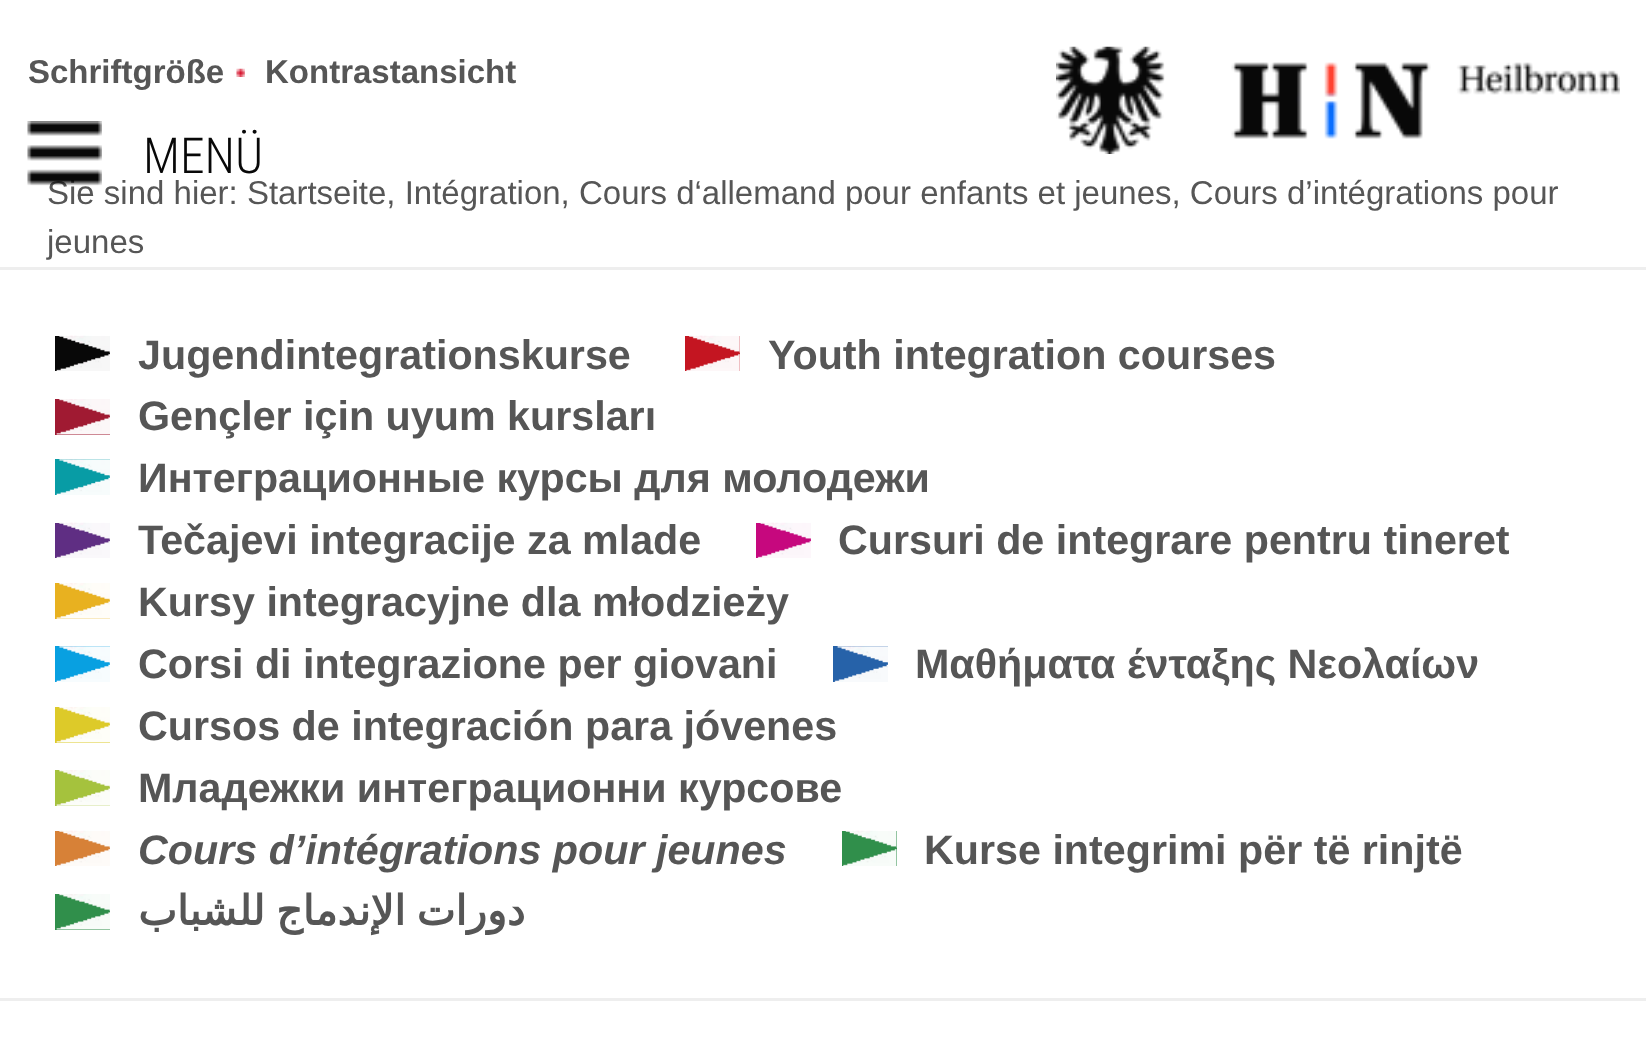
async function draw(canvas) {
  canvas.width = 1646;
  canvas.height = 1038;
  const ctx = canvas.getContext('2d');
  ctx.miterLimit = 4;
  ctx.fontKerning = 'normal';
  function label(s, x, y, font, color) {
    ctx.font = font;
    ctx.fillStyle = color;
    ctx.fillText(s, x, y);
  }
  function rect(x, y, w, h, color) {
    ctx.fillStyle = color;
    ctx.fillRect(x, y, w, h);
  }
  async function image(src, x, y, w, h) {
    const img = new Image();
    img.src = src;
    await img.decode();
    ctx.drawImage(img, x, y, w, h);
  }

  rect(0, 0, 1646, 1038, '#fff');
  label('Schriftgröße', 28, 83, 'bold 33px Liberation Sans', '#565656');
  await image('assets/img1.png', 236, 68, 9, 9);
  label('Kontrastansicht', 265, 83, 'bold 33px Liberation Sans', '#565656');
  await image('assets/img2.png', 1056, 46, 564, 108);
  label('Sie sind hier: Startseite, Intégration, Cours d‘allemand pour enfants et jeunes, Cours d’intégrations pour', 47, 204, '33px Liberation Sans', '#565656');
  await image('assets/img3.png', 27, 121, 75, 65);
  label('MENÜ', 143, 173, '300 49.5px Roboto Condensed', '#080808');
  rect(0, 267, 1646, 3, '#eee');
  label('jeunes', 47, 253, '33px Liberation Sans', '#565656');
  rect(0, 998, 1646, 3, '#eee');
  rect(55, 336, 55, 35, '#080808');
  await image('assets/img4.png', 56, 335, 54, 36);
  label('Jugendintegrationskurse', 138, 369, 'bold 41.25px Liberation Sans', '#565656');
  rect(685, 336, 55, 35, '#c41521');
  await image('assets/img5.png', 686, 335, 54, 36);
  label('Youth integration courses', 768, 369, 'bold 41.25px Liberation Sans', '#565656');
  rect(55, 399, 55, 36, '#a01a32');
  await image('assets/img6.png', 56, 399, 54, 36);
  label('Gençler için uyum kursları', 138, 430, 'bold 41.25px Liberation Sans', '#565656');
  rect(55, 459, 55, 36, '#089ca5');
  await image('assets/img7.png', 56, 459, 54, 36);
  label('Интеграционные курсы для молодежи', 138, 492, 'bold 41.25px Liberation Sans', '#565656');
  rect(55, 523, 55, 35, '#5f2e83');
  await image('assets/img8.png', 56, 522, 54, 36);
  label('Tečajevi integracije za mlade', 138, 554, 'bold 41.25px Liberation Sans', '#565656');
  rect(756, 523, 55, 35, '#c6087e');
  await image('assets/img9.png', 757, 522, 54, 36);
  label('Cursuri de integrare pentru tineret', 838, 554, 'bold 41.25px Liberation Sans', '#565656');
  rect(55, 583, 55, 36, '#e8b120');
  await image('assets/img10.png', 56, 583, 54, 36);
  label('Kursy integracyjne dla młodzieży', 138, 616, 'bold 41.25px Liberation Sans', '#565656');
  rect(55, 646, 55, 36, '#08a0e1');
  await image('assets/img11.png', 56, 646, 54, 36);
  label('Corsi di integrazione per giovani', 138, 678, 'bold 41.25px Liberation Sans', '#565656');
  rect(833, 646, 55, 36, '#2662a9');
  await image('assets/img12.png', 834, 646, 54, 36);
  label('Μαθήματα ένταξης Νεολαίων', 915, 678, 'bold 41.25px Liberation Sans', '#565656');
  rect(55, 707, 55, 36, '#ddca29');
  await image('assets/img13.png', 56, 707, 54, 36);
  label('Cursos de integración para jóvenes', 138, 740, 'bold 41.25px Liberation Sans', '#565656');
  rect(55, 770, 55, 36, '#a5c23d');
  await image('assets/img14.png', 56, 770, 54, 36);
  label('Младежки интеграционни курсове', 138, 802, 'bold 41.25px Liberation Sans', '#565656');
  rect(55, 831, 55, 35, '#d78137');
  await image('assets/img15.png', 56, 830, 54, 36);
  label('Cours d’intégrations pour jeunes', 138, 864, 'italic bold 41.25px Liberation Sans', '#565656');
  rect(842, 831, 55, 35, '#308f4b');
  await image('assets/img16.png', 843, 830, 54, 36);
  label('Kurse integrimi për të rinjtë', 924, 864, 'bold 41.25px Liberation Sans', '#565656');
  rect(55, 894, 55, 36, '#308f4b');
  await image('assets/img17.png', 56, 894, 54, 36);
  ctx.wordSpacing = '-2px';
  ctx.direction = 'rtl';
  label('دورات الإندماج للشباب', 525, 925, 'bold 41.25px DejaVu Sans', '#565656');
}

draw(document.querySelector('canvas'));
